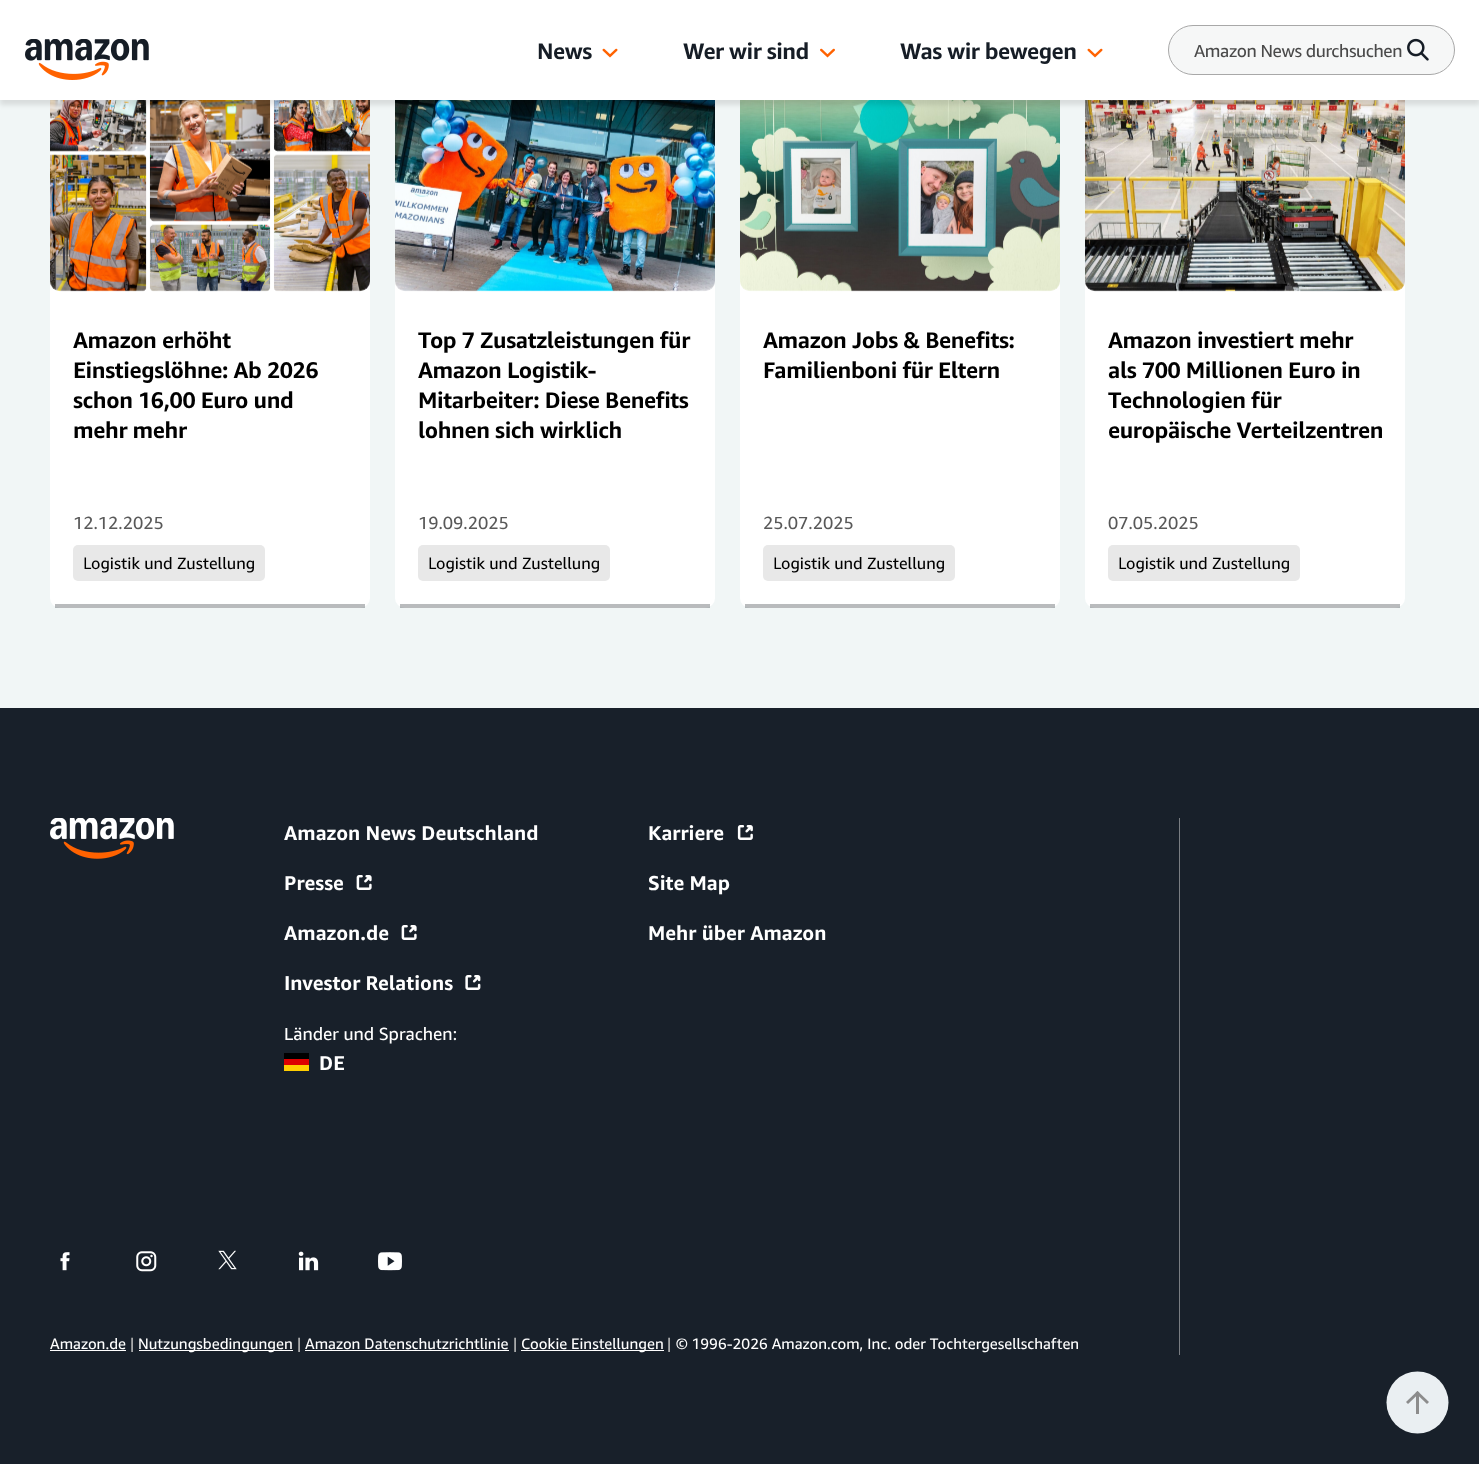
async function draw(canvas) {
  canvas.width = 1479;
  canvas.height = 1464;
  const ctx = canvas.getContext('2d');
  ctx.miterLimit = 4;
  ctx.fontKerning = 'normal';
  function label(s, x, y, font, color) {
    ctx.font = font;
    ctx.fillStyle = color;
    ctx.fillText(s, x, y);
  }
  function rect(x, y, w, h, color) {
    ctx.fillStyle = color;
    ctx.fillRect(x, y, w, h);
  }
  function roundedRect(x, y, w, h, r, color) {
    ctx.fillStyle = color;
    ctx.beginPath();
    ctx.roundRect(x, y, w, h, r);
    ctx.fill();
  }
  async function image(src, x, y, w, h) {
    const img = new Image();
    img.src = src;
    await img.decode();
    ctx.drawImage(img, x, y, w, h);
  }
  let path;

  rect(0, 0, 1479, 1464, '#f1f6f6');
  roundedRect(50, 85, 320, 523, 10, '#fff');
  await image('assets/img5.png', 50, 100, 320, 192);
  roundedRect(395, 85, 320, 523, 10, '#fff');
  await image('assets/img6.png', 395, 100, 320, 192);
  roundedRect(740, 85, 320, 523, 10, '#fff');
  await image('assets/img7.png', 740, 100, 320, 192);
  roundedRect(1085, 85, 320, 523, 10, '#fff');
  await image('assets/img8.png', 1085, 100, 320, 192);
  ctx.fillStyle = '#0000001a';
  ctx.filter = 'blur(2.5px)';
  ctx.beginPath();
  ctx.rect(0, 5, 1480, 100);
  ctx.fill();
  ctx.filter = 'none';
  rect(0, 0, 1479, 100, '#fff');
  await image('assets/img1.png', 25, 39, 124, 41);
  ctx.letterSpacing = '-0.5px';
  label('News', 537, 59, 'bold 22.5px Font', '#161d26');
  await image('assets/img2.png', 602, 48, 16, 10);
  label('Wer wir sind', 683, 59, 'bold 22.5px Font', '#161d26');
  await image('assets/img3.png', 820, 48, 15, 10);
  label('Was wir bewegen', 900, 59, 'bold 22.5px Font', '#161d26');
  await image('assets/img2.png', 1087, 48, 16, 10);
  ctx.fillStyle = '#f6f7f7';
  ctx.beginPath();
  ctx.roundRect(1168.5, 25.5, 286, 49, 24.5);
  ctx.fill();
  ctx.strokeStyle = '#a8a8a8';
  ctx.stroke();
  ctx.letterSpacing = '-0.4px';
  label('Amazon News durchsuchen', 1194, 57, '17.5px Font', '#4a4a4a');
  await image('assets/img4.png', 1407, 38, 22, 23);
  rect(55, 604, 310, 4, '#161d264d');
  label('Amazon erhöht', 73, 348, 'bold 22.5px Font', '#000');
  label('Einstiegslöhne: Ab 2026', 73, 378, 'bold 22.5px Font', '#000');
  label('schon 16,00 Euro und', 73, 408, 'bold 22.5px Font', '#000');
  label('mehr mehr', 73, 438, 'bold 22.5px Font', '#000');
  ctx.letterSpacing = '0px';
  label('12.12.2025', 73, 529, '17.5px Font', '#595959');
  roundedRect(73, 545, 192, 36, 5, '#e8e8e8');
  label('L', 83, 569, '16.25px Noto Sans', '#000');
  label('ogistik und Zustellung', 91, 569, '16.25px Font', '#000');
  rect(400, 604, 310, 4, '#161d264d');
  ctx.save();
  ctx.beginPath();
  ctx.rect(418, 324, 275, 120);
  ctx.clip();
  ctx.letterSpacing = '-0.4px';
  label('Top 7 Zusatzleistungen für', 418, 348, 'bold 22.5px Font', '#000');
  ctx.restore();
  ctx.letterSpacing = '-0.4px';
  label('Amazon Logistik-', 418, 378, 'bold 22.5px Font', '#000');
  label('Mitarbeiter: Diese Benefits', 418, 408, 'bold 22.5px Font', '#000');
  label('lohnen sich wirklich', 418, 438, 'bold 22.5px Font', '#000');
  ctx.letterSpacing = '0px';
  label('19.09.2025', 418, 529, '17.5px Font', '#595959');
  roundedRect(418, 545, 192, 36, 5, '#e8e8e8');
  label('L', 428, 569, '16.25px Noto Sans', '#000');
  label('ogistik und Zustellung', 436, 569, '16.25px Font', '#000');
  rect(745, 604, 310, 4, '#161d264d');
  ctx.letterSpacing = '-0.4px';
  label('Amazon Jobs & Benefits:', 763, 348, 'bold 22.5px Font', '#000');
  label('Familienboni für Eltern', 763, 378, 'bold 22.5px Font', '#000');
  ctx.letterSpacing = '0px';
  label('25.07.2025', 763, 529, '17.5px Font', '#595959');
  roundedRect(763, 545, 192, 36, 5, '#e8e8e8');
  label('L', 773, 569, '16.25px Noto Sans', '#000');
  label('ogistik und Zustellung', 781, 569, '16.25px Font', '#000');
  rect(1090, 604, 310, 4, '#161d264d');
  ctx.letterSpacing = '-0.4px';
  label('Amazon investiert mehr', 1108, 348, 'bold 22.5px Font', '#000');
  label('als 700 Millionen Euro in', 1108, 378, 'bold 22.5px Font', '#000');
  ctx.save();
  ctx.beginPath();
  ctx.rect(1108, 324, 275, 120);
  ctx.clip();
  label('Technologien für', 1108, 408, 'bold 22.5px Font', '#000');
  ctx.restore();
  label('europäische Verteilzentren', 1108, 438, 'bold 22.5px Font', '#000');
  ctx.letterSpacing = '0px';
  label('07.05.2025', 1108, 529, '17.5px Font', '#595959');
  roundedRect(1108, 545, 192, 36, 5, '#e8e8e8');
  label('L', 1118, 569, '16.25px Noto Sans', '#000');
  label('ogistik und Zustellung', 1126, 569, '16.25px Font', '#000');
  rect(0, 708, 1479, 756, '#18202a');
  await image('assets/img9.png', 50, 818, 124, 41);
  label('Amazon News Deutschland', 284, 840, 'bold 20px Font', '#fff');
  label('Presse', 284, 890, 'bold 20px Font', '#fff');
  await image('assets/img10.png', 356, 875, 16, 15);
  label('Amazon.de', 284, 940, 'bold 20px Font', '#fff');
  await image('assets/img10.png', 401, 925, 16, 15);
  label('Investor Relations', 284, 990, 'bold 20px Font', '#fff');
  await image('assets/img11.png', 465, 975, 16, 15);
  label('Länder und Sprachen:', 284, 1040, '17.5px Font', '#fff');
  rect(284, 1065, 25, 6, '#ffce00');
  rect(284, 1053, 25, 6, '#000');
  rect(284, 1059, 25, 6, '#d00');
  label('DE', 319, 1070, 'bold 20px Font', '#fff');
  label('Karriere', 648, 840, 'bold 20px Font', '#fff');
  await image('assets/img12.png', 737, 825, 16, 15);
  label('Site Map', 648, 890, 'bold 20px Font', '#fff');
  label('Mehr über Amazon', 648, 940, 'bold 20px Font', '#fff');
  await image('assets/img13.png', 60, 1252, 10, 19);
  await image('assets/img14.png', 136, 1251, 21, 21);
  await image('assets/img15.png', 218, 1250, 19, 20);
  await image('assets/img16.png', 298, 1251, 21, 20);
  await image('assets/img17.png', 378, 1252, 24, 19);
  label('Amazon.de', 50, 1349, '15px Font', '#fff');
  rect(50, 1350, 76, 1, '#fff');
  label('|', 130, 1349, '15px Font', '#bdbdbd');
  rect(139, 1350, 154, 1, '#fff');
  label('Nutzungsbedingungen', 138, 1349, '15px Font', '#fff');
  label('|', 297, 1349, '15px Font', '#bdbdbd');
  label('Amazon Datenschutzrichtlinie', 305, 1349, '15px Font', '#fff');
  rect(305, 1350, 204, 1, '#fff');
  label('|', 513, 1349, '15px Font', '#bdbdbd');
  rect(521, 1350, 143, 1, '#fff');
  label('Cookie Einstellungen', 521, 1349, '15px Font', '#fff');
  label('|', 667, 1349, '15px Font', '#bdbdbd');
  label('© 1996-2026 Amazon.com, Inc. oder Tochtergesellschaften', 676, 1349, '15px Font', '#fff');
  rect(1179, 818, 1, 537, '#797d82');
  ctx.fillStyle = '#eaeff2';
  ctx.beginPath();
  ctx.arc(1417.5, 1402.5, 31, 0, 2 * Math.PI);
  ctx.fill();
  rect(1416, 1394, 3, 20, '#8c8c8c');
  path = new Path2D('M1417.5 1391L1419.5 1393L1408 1404L1406 1402Z');
  ctx.fill(path);
  path = new Path2D('M1417.5 1391L1415.5 1393L1427 1404L1429 1402Z');
  ctx.fill(path);
}

draw(document.querySelector('canvas'));
